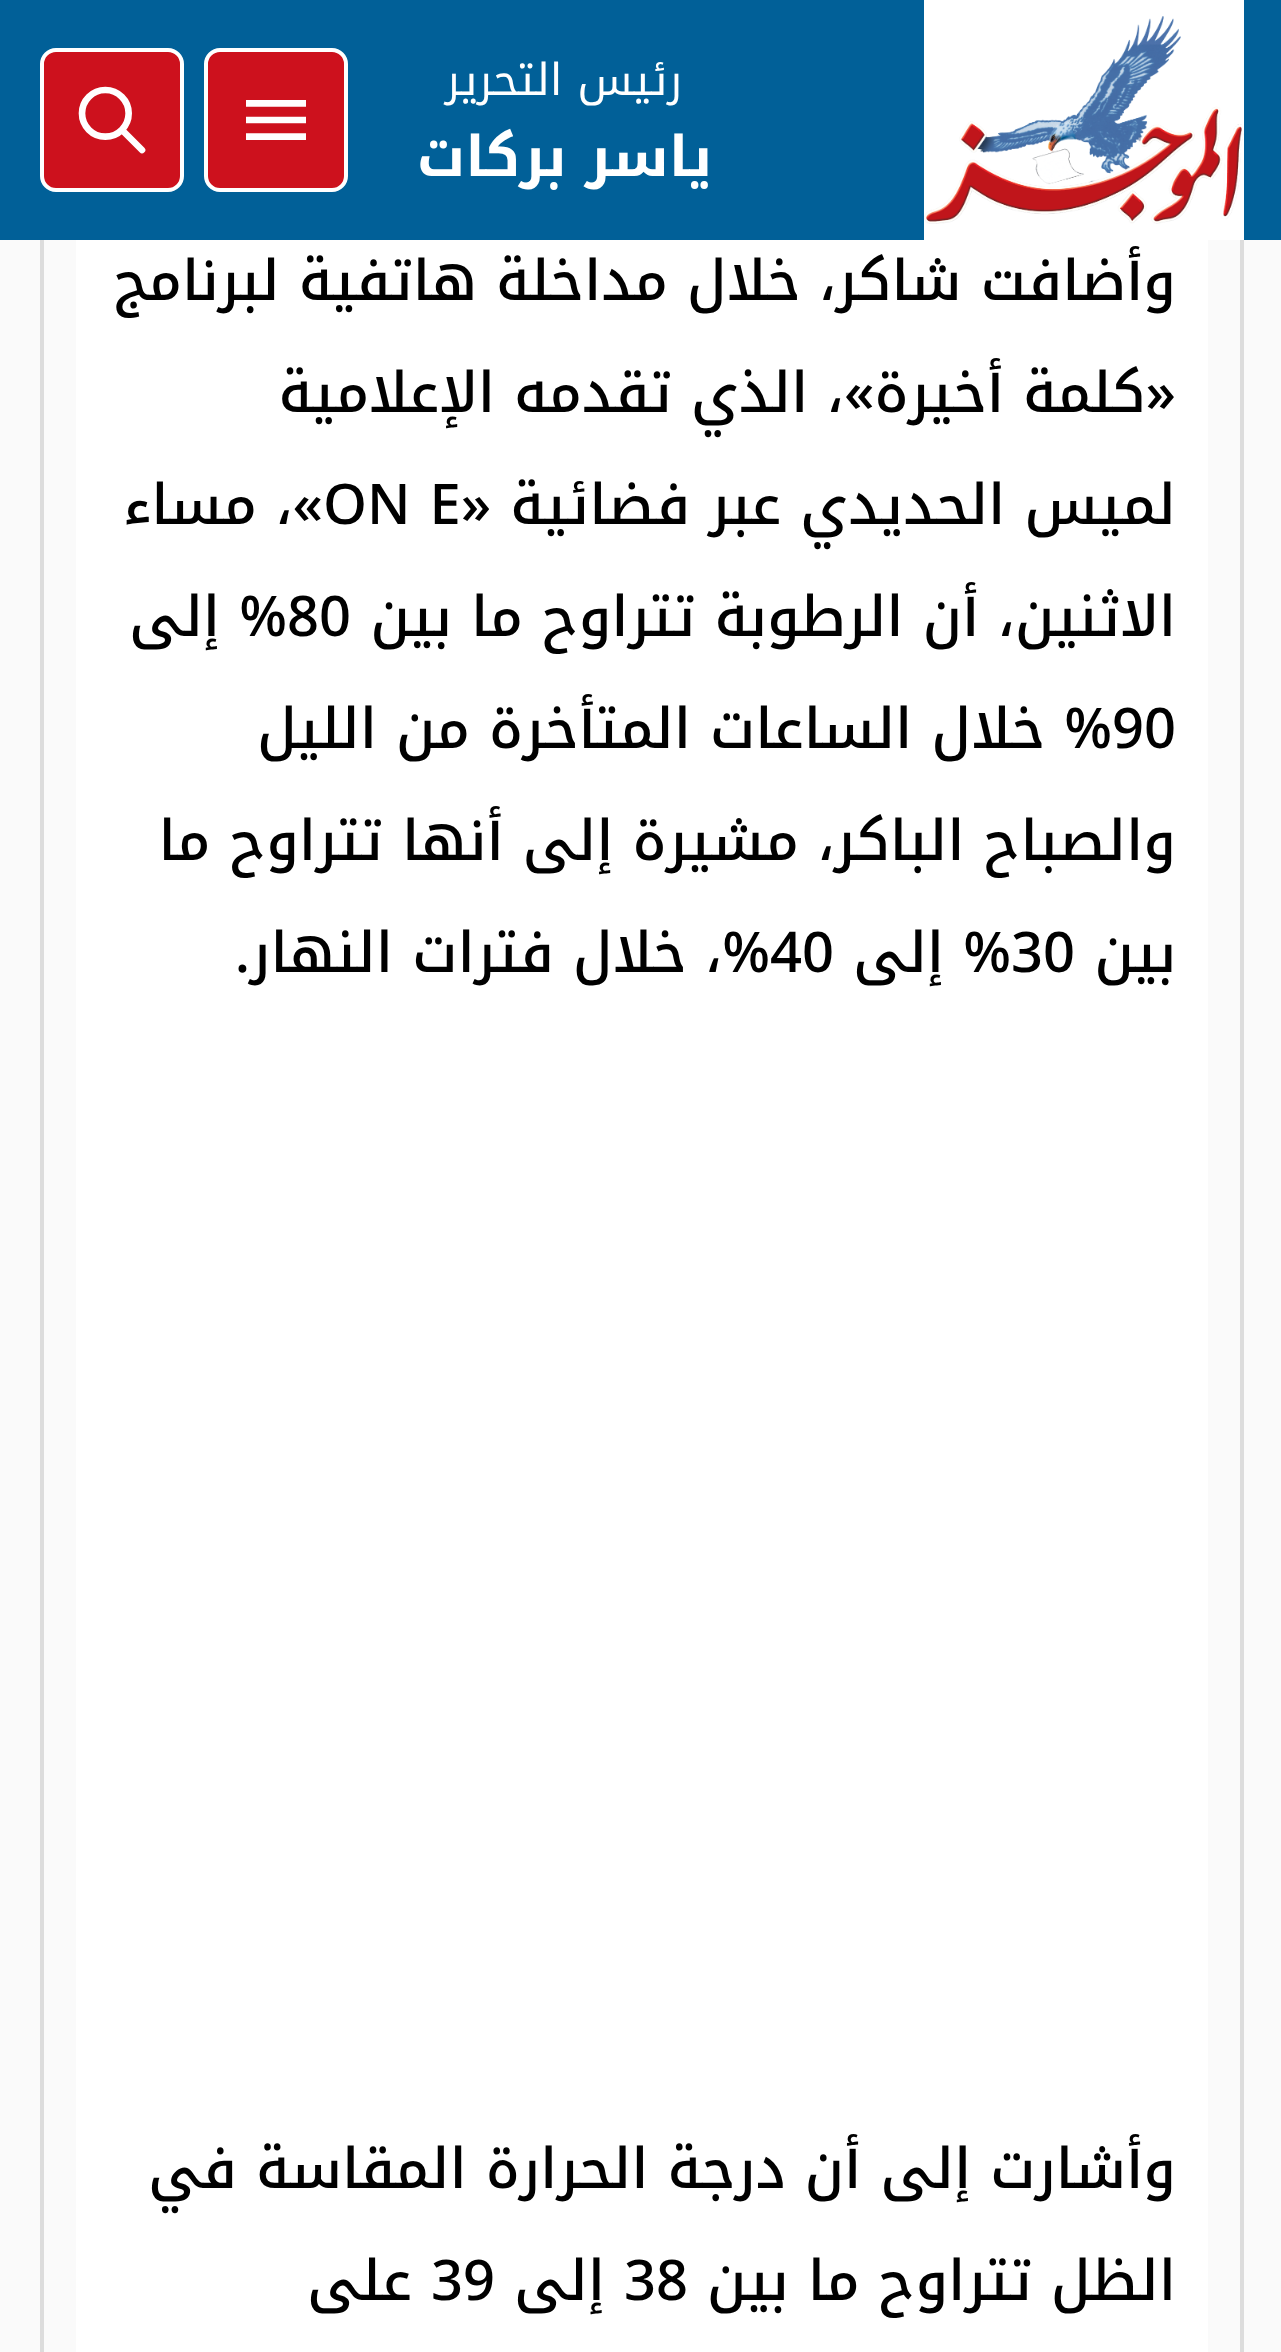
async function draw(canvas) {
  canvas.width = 1281;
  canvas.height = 2352;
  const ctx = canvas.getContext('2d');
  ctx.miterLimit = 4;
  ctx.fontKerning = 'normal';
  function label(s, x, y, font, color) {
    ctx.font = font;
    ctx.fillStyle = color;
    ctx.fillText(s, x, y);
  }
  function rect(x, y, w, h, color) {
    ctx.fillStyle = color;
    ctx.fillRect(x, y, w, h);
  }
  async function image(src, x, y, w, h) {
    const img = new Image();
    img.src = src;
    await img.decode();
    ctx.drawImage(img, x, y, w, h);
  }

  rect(0, 0, 1281, 2352, '#fafafa');
  ctx.strokeStyle = '#dcdcdc';
  ctx.lineWidth = 4;
  ctx.strokeRect(42, -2, 1200, 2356);
  rect(0, 0, 1281, 240, '#016098');
  rect(924, 0, 320, 240, '#fff');
  await image('assets/img1.png', 924, 16, 320, 208);
  ctx.direction = 'rtl';
  label('رئيس التحرير', 682, 95, '44px Noto Kufi Arabic', '#fff');
  label('ياسر بركات', 712, 176, 'bold 56px Noto Kufi Arabic', '#fff');
  ctx.fillStyle = '#cd111d';
  ctx.beginPath();
  ctx.roundRect(206, 50, 140, 140, 14);
  ctx.fill();
  ctx.strokeStyle = '#fff';
  ctx.stroke();
  await image('assets/img2.png', 246, 100, 60, 40);
  ctx.beginPath();
  ctx.roundRect(42, 50, 140, 140, 14);
  ctx.fill();
  ctx.stroke();
  await image('assets/img3.png', 78, 86, 68, 68);
  rect(76, 240, 1132, 2112, '#fff');
  label('وأضافت شاكر، خلال مداخلة هاتفية لبرنامج', 1176, 300, '500 56px Noto Kufi Arabic', '#000');
  label('«كلمة أخيرة»، الذي تقدمه الإعلامية', 1176, 412, '500 56px Noto Kufi Arabic', '#000');
  label('لميس الحديدي عبر فضائية «', 1176, 524, '500 56px Noto Kufi Arabic', '#000');
  ctx.direction = 'ltr';
  label('ON E', 323, 524, '500 56px Noto Kufi Arabic', '#000');
  ctx.direction = 'rtl';
  label('»، مساء', 323, 524, '500 56px Noto Kufi Arabic', '#000');
  label('الاثنين، أن الرطوبة تتراوح ما بين', 1176, 636, '500 56px Noto Kufi Arabic', '#000');
  ctx.direction = 'ltr';
  label('80', 287, 636, '500 56px Noto Kufi Arabic', '#000');
  ctx.direction = 'rtl';
  label('% إلى', 287, 636, '500 56px Noto Kufi Arabic', '#000');
  ctx.direction = 'ltr';
  label('90', 1112, 748, '500 56px Noto Kufi Arabic', '#000');
  ctx.direction = 'rtl';
  label('% خلال الساعات المتأخرة من الليل', 1112, 748, '500 56px Noto Kufi Arabic', '#000');
  label('والصباح الباكر، مشيرة إلى أنها تتراوح ما', 1176, 860, '500 56px Noto Kufi Arabic', '#000');
  label('بين', 1176, 972, '500 56px Noto Kufi Arabic', '#000');
  ctx.direction = 'ltr';
  label('30', 1011, 972, '500 56px Noto Kufi Arabic', '#000');
  ctx.direction = 'rtl';
  label('% إلى', 1011, 972, '500 56px Noto Kufi Arabic', '#000');
  ctx.direction = 'ltr';
  label('40', 770, 972, '500 56px Noto Kufi Arabic', '#000');
  ctx.direction = 'rtl';
  label('%، خلال فترات النهار.', 770, 972, '500 56px Noto Kufi Arabic', '#000');
  label('وأشارت إلى أن درجة الحرارة المقاسة في', 1176, 2188, '500 56px Noto Kufi Arabic', '#000');
  label('الظل تتراوح ما بين', 1176, 2300, '500 56px Noto Kufi Arabic', '#000');
  ctx.direction = 'ltr';
  label('38', 624, 2300, '500 56px Noto Kufi Arabic', '#000');
  ctx.direction = 'rtl';
  label('إلى', 605, 2300, '500 56px Noto Kufi Arabic', '#000');
  ctx.direction = 'ltr';
  label('39', 431, 2300, '500 56px Noto Kufi Arabic', '#000');
  ctx.direction = 'rtl';
  label('على', 412, 2300, '500 56px Noto Kufi Arabic', '#000');
}

draw(document.querySelector('canvas'));
